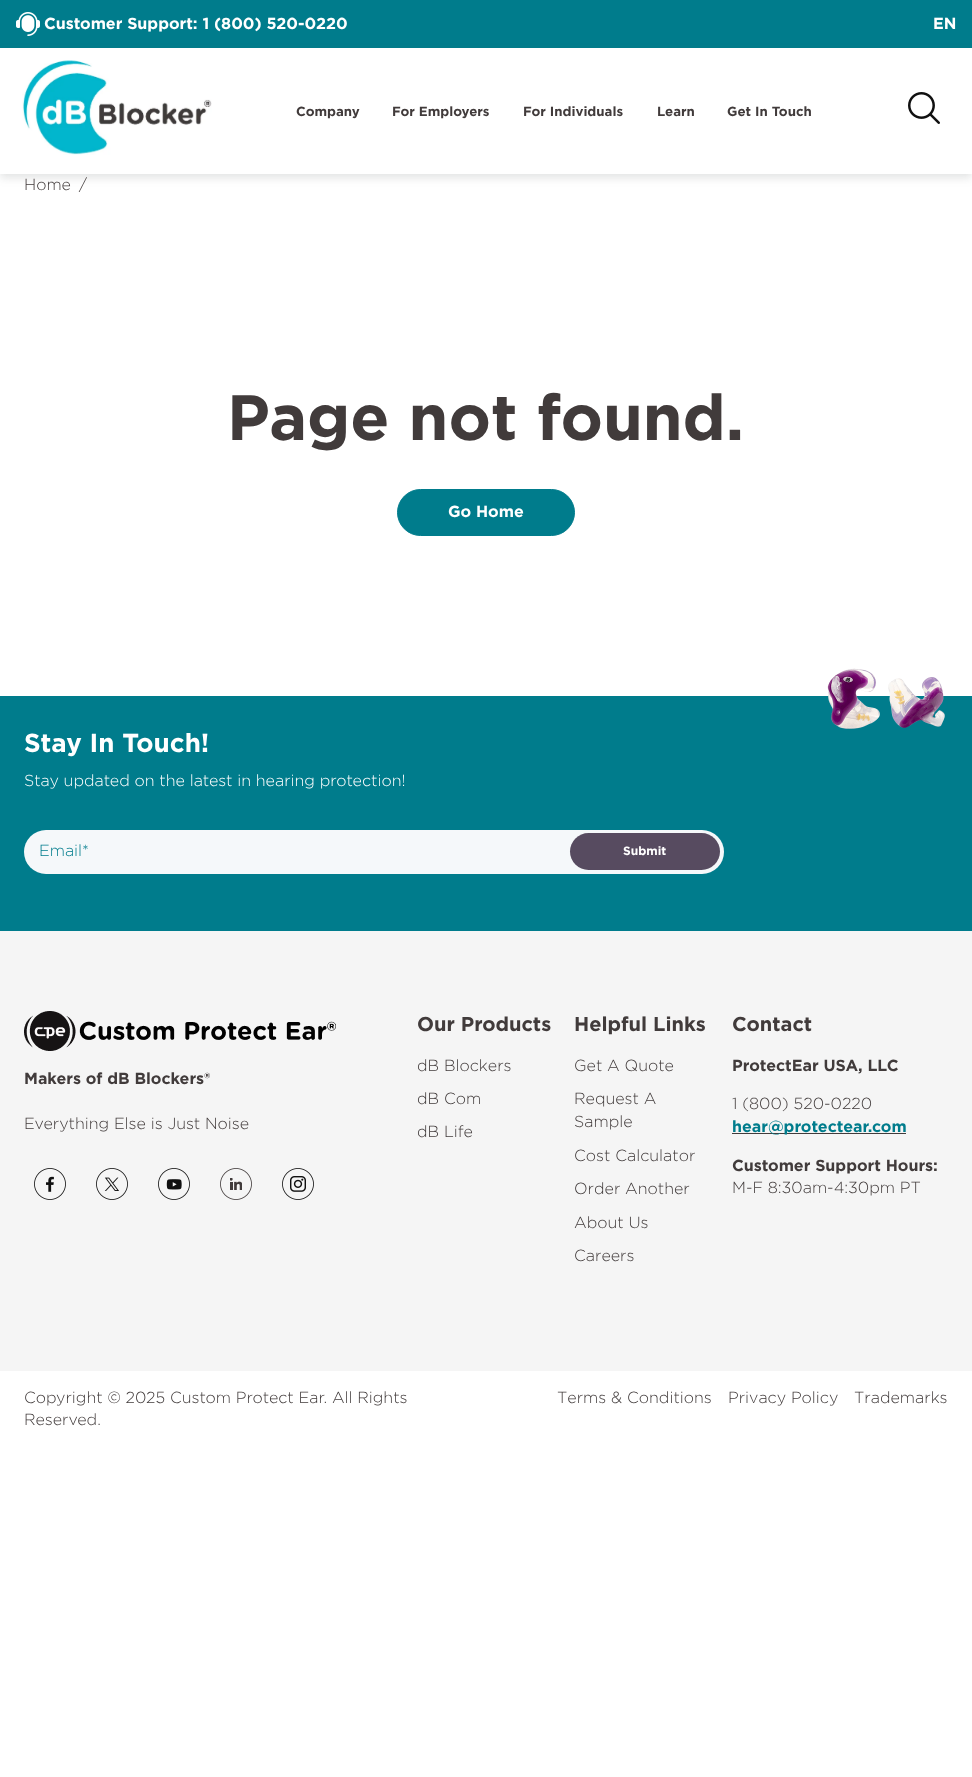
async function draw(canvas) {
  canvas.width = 972;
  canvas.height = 1777;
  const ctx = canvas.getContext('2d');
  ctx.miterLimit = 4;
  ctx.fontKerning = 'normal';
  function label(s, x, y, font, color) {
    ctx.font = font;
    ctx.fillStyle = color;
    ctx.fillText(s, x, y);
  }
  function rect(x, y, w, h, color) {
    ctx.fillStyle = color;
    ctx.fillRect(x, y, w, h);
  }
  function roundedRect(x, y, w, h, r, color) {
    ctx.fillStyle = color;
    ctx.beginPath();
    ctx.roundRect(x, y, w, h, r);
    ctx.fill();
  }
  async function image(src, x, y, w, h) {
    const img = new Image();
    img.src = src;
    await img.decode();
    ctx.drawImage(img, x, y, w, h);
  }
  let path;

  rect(0, 0, 972, 1777, '#fff');
  rect(0, 0, 972, 48, '#007c8c');
  await image('assets/img1.png', 16, 12, 24, 24);
  label('Customer Support: 1 (800) 520-0220', 44, 29, 'bold 16px Gotham', '#fff');
  label('EN', 933, 29, 'bold 16px Gotham', '#fff');
  ctx.save();
  path = new Path2D('M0 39H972V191H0ZM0 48H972V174H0Z');
  ctx.clip(path, 'evenodd');
  ctx.fillStyle = '#53565a29';
  ctx.filter = 'blur(4px)';
  ctx.beginPath();
  ctx.rect(0, 52, 972, 126);
  ctx.fill();
  ctx.filter = 'none';
  ctx.restore();
  await image('assets/img2.png', 22, 60, 190, 95);
  label('Company', 296, 116, 'bold 13.25px Gotham', '#413b3b');
  label('For Employers', 392, 116, 'bold 13.25px Gotham', '#413b3b');
  label('For Individuals', 523, 116, 'bold 13.25px Gotham', '#413b3b');
  label('Learn', 657, 116, 'bold 13.25px Gotham', '#413b3b');
  label('Get In Touch', 727, 116, 'bold 13.25px Gotham', '#413b3b');
  await image('assets/img3.png', 908, 92, 32, 32);
  label('Home', 24, 190, '300 16px "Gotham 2"', '#413b3b');
  label('/', 79, 190, '300 16px Gotham', '#413b3b');
  label('Page not found.', 227, 440, 'bold 64px Gotham', '#413b3b');
  ctx.fillStyle = '#007c8c';
  ctx.beginPath();
  ctx.roundRect(397.5, 489.5, 177, 46, 23);
  ctx.fill();
  ctx.strokeStyle = '#007c8c';
  ctx.stroke();
  label('Go Home', 448, 517, 'bold 16px Gotham', '#fff');
  rect(0, 931, 972, 440, '#f5f5f5');
  rect(0, 696, 972, 235, '#007c8c');
  await image('assets/img4.png', 827, 668, 118, 61);
  label('Stay In Touch!', 24, 752, 'bold 26px Gotham', '#fff');
  label('Stay updated on the latest in hearing protection!', 24, 786, '300 16px Gotham', '#fff');
  roundedRect(24, 830, 700, 44, 22, '#f5f8fa');
  label('Email*', 39, 856, '300 16px "Gotham 2"', '#007c8c');
  roundedRect(570, 833, 150, 37, 18.5, '#574b60');
  label('Submit', 623, 855, 'bold 12px Gotham', '#fff');
  await image('assets/img5.png', 24, 1011, 312, 40);
  label('Makers of dB Blockers®', 24, 1084, 'bold 16px Gotham', '#413b3b');
  label('Everything Else is Just Noise', 24, 1129, '300 16px Gotham', '#413b3b');
  await image('assets/img6.png', 34, 1168, 32, 32);
  await image('assets/img7.png', 96, 1168, 32, 32);
  await image('assets/img8.png', 158, 1168, 32, 32);
  await image('assets/img9.png', 220, 1168, 32, 32);
  await image('assets/img10.png', 282, 1168, 32, 32);
  label('Our Products', 417, 1031, 'bold 20px Gotham', '#413b3b');
  label('dB Blockers', 417, 1071, '300 16px "Gotham 2"', '#413b3b');
  label('dB Com', 417, 1104, '300 16px "Gotham 2"', '#413b3b');
  label('dB Life', 417, 1137, '300 16px "Gotham 2"', '#413b3b');
  label('Helpful Links', 574, 1031, 'bold 20px Gotham', '#413b3b');
  label('Get A Quote', 574, 1071, '300 16px "Gotham 2"', '#413b3b');
  label('Request A', 574, 1104, '300 16px "Gotham 2"', '#413b3b');
  label('Sample', 574, 1127, '300 16px "Gotham 2"', '#413b3b');
  label('Cost Calculator', 574, 1161, '300 16px "Gotham 2"', '#413b3b');
  label('Order Another', 574, 1194, '300 16px "Gotham 2"', '#413b3b');
  label('About Us', 574, 1228, '300 16px "Gotham 2"', '#413b3b');
  label('Careers', 574, 1261, '300 16px "Gotham 2"', '#413b3b');
  label('Contact', 732, 1031, 'bold 20px Gotham', '#413b3b');
  label('ProtectEar USA, LLC', 732, 1071, 'bold 16px Gotham', '#413b3b');
  label('1 (800) 520-0220', 732, 1109, '300 16px "Gotham 2"', '#413b3b');
  rect(732, 1133, 174, 1, '#413b3b');
  label('hear@protectear.com', 732, 1132, 'bold 16px Gotham', '#007c8c');
  label('Customer Support Hours:', 732, 1171, 'bold 16px Gotham', '#413b3b');
  label('M-F 8:30am-4:30pm PT', 732, 1193, '300 16px Gotham', '#413b3b');
  label('Copyright © 2025 Custom Protect Ear. All Rights', 24, 1403, '300 16px Gotham', '#413b3b');
  label('Reserved.', 24, 1425, '300 16px Gotham', '#413b3b');
  label('Terms & Conditions', 557, 1403, '300 16px "Gotham 2"', '#413b3b');
  label('Privacy Policy', 728, 1403, '300 16px "Gotham 2"', '#413b3b');
  label('Trademarks', 854, 1403, '300 16px "Gotham 2"', '#413b3b');
}

draw(document.querySelector('canvas'));
